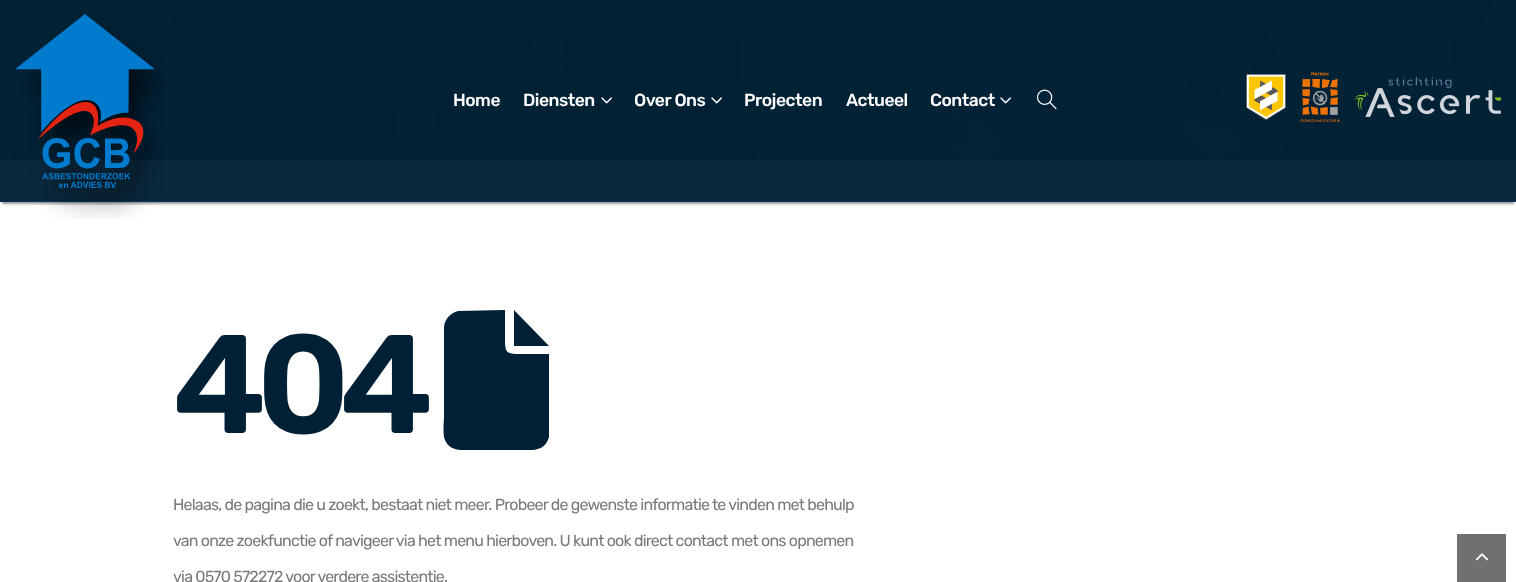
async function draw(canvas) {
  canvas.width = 1516;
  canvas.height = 582;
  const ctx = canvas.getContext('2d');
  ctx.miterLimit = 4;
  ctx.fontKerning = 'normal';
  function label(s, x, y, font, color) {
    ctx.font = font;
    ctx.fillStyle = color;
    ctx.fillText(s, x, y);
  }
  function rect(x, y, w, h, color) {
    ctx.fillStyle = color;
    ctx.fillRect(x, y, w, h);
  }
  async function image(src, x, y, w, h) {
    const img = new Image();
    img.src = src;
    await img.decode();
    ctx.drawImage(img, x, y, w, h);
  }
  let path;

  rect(0, 0, 1516, 582, '#fff');
  await image('assets/img1.png', 0, 0, 1516, 161);
  rect(0, 161, 1516, 40, '#0a293d');
  ctx.save();
  ctx.beginPath();
  ctx.rect(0, 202, 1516, 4);
  ctx.clip();
  ctx.fillStyle = '#00000066';
  ctx.filter = 'blur(1px)';
  ctx.beginPath();
  ctx.rect(2, 6, 1512, 198);
  ctx.fill();
  ctx.filter = 'none';
  ctx.restore();
  rect(0, 201, 1516, 1, '#003559');
  await image('assets/img2.png', 15, 14, 149, 205);
  ctx.letterSpacing = '-0.5px';
  label('Home', 453, 106, '500 17.5px Rubik', '#fff');
  label('Diensten', 523, 106, '500 17.5px Rubik', '#fff');
  await image('assets/img3.png', 601, 97, 11, 7);
  label('Over Ons', 634, 106, '500 17.5px Rubik', '#fff');
  await image('assets/img4.png', 711, 97, 11, 7);
  label('Projecten', 744, 106, '500 17.5px Rubik', '#fff');
  label('Actueel', 846, 106, '500 17.5px Rubik', '#fff');
  label('Contact', 930, 106, '500 17.5px Rubik', '#fff');
  await image('assets/img5.png', 1000, 97, 11, 7);
  await image('assets/img6.png', 1036, 89, 21, 21);
  await image('assets/img7.png', 1246, 74, 40, 46);
  await image('assets/img8.png', 1300, 72, 40, 50);
  await image('assets/img9.png', 1354, 77, 147, 40);
  ctx.letterSpacing = '-10px';
  label('404', 173, 433, '600 140px Rubik', '#002035');
  path = new Path2D('M444 328C444 320 450 313 458 311L505 310V340C505 353 507 354 520 354H549V437C545 452 532 450 520 450H473C461 450 448 452 444 437C443 430 444 420 444 416ZM549 346H514V310Z');
  ctx.fill(path);
  ctx.letterSpacing = '-0.8px';
  label('Helaas, de pagina die u zoekt, bestaat niet meer. Probeer de gewenste informatie te vinden met behulp', 173, 510, '16px Rubik', '#7a7a7a');
  label('van onze zoekfunctie of navigeer via het menu hierboven. U kunt ook direct contact met ons opnemen', 173, 546, '16px Rubik', '#7a7a7a');
  label('via 0570 572272 voor verdere assistentie.', 173, 582, '16px Rubik', '#7a7a7a');
  rect(1457, 534, 49, 48, '#707070');
  await image('assets/img10.png', 1475, 553, 14, 8);
}

draw(document.querySelector('canvas'));
